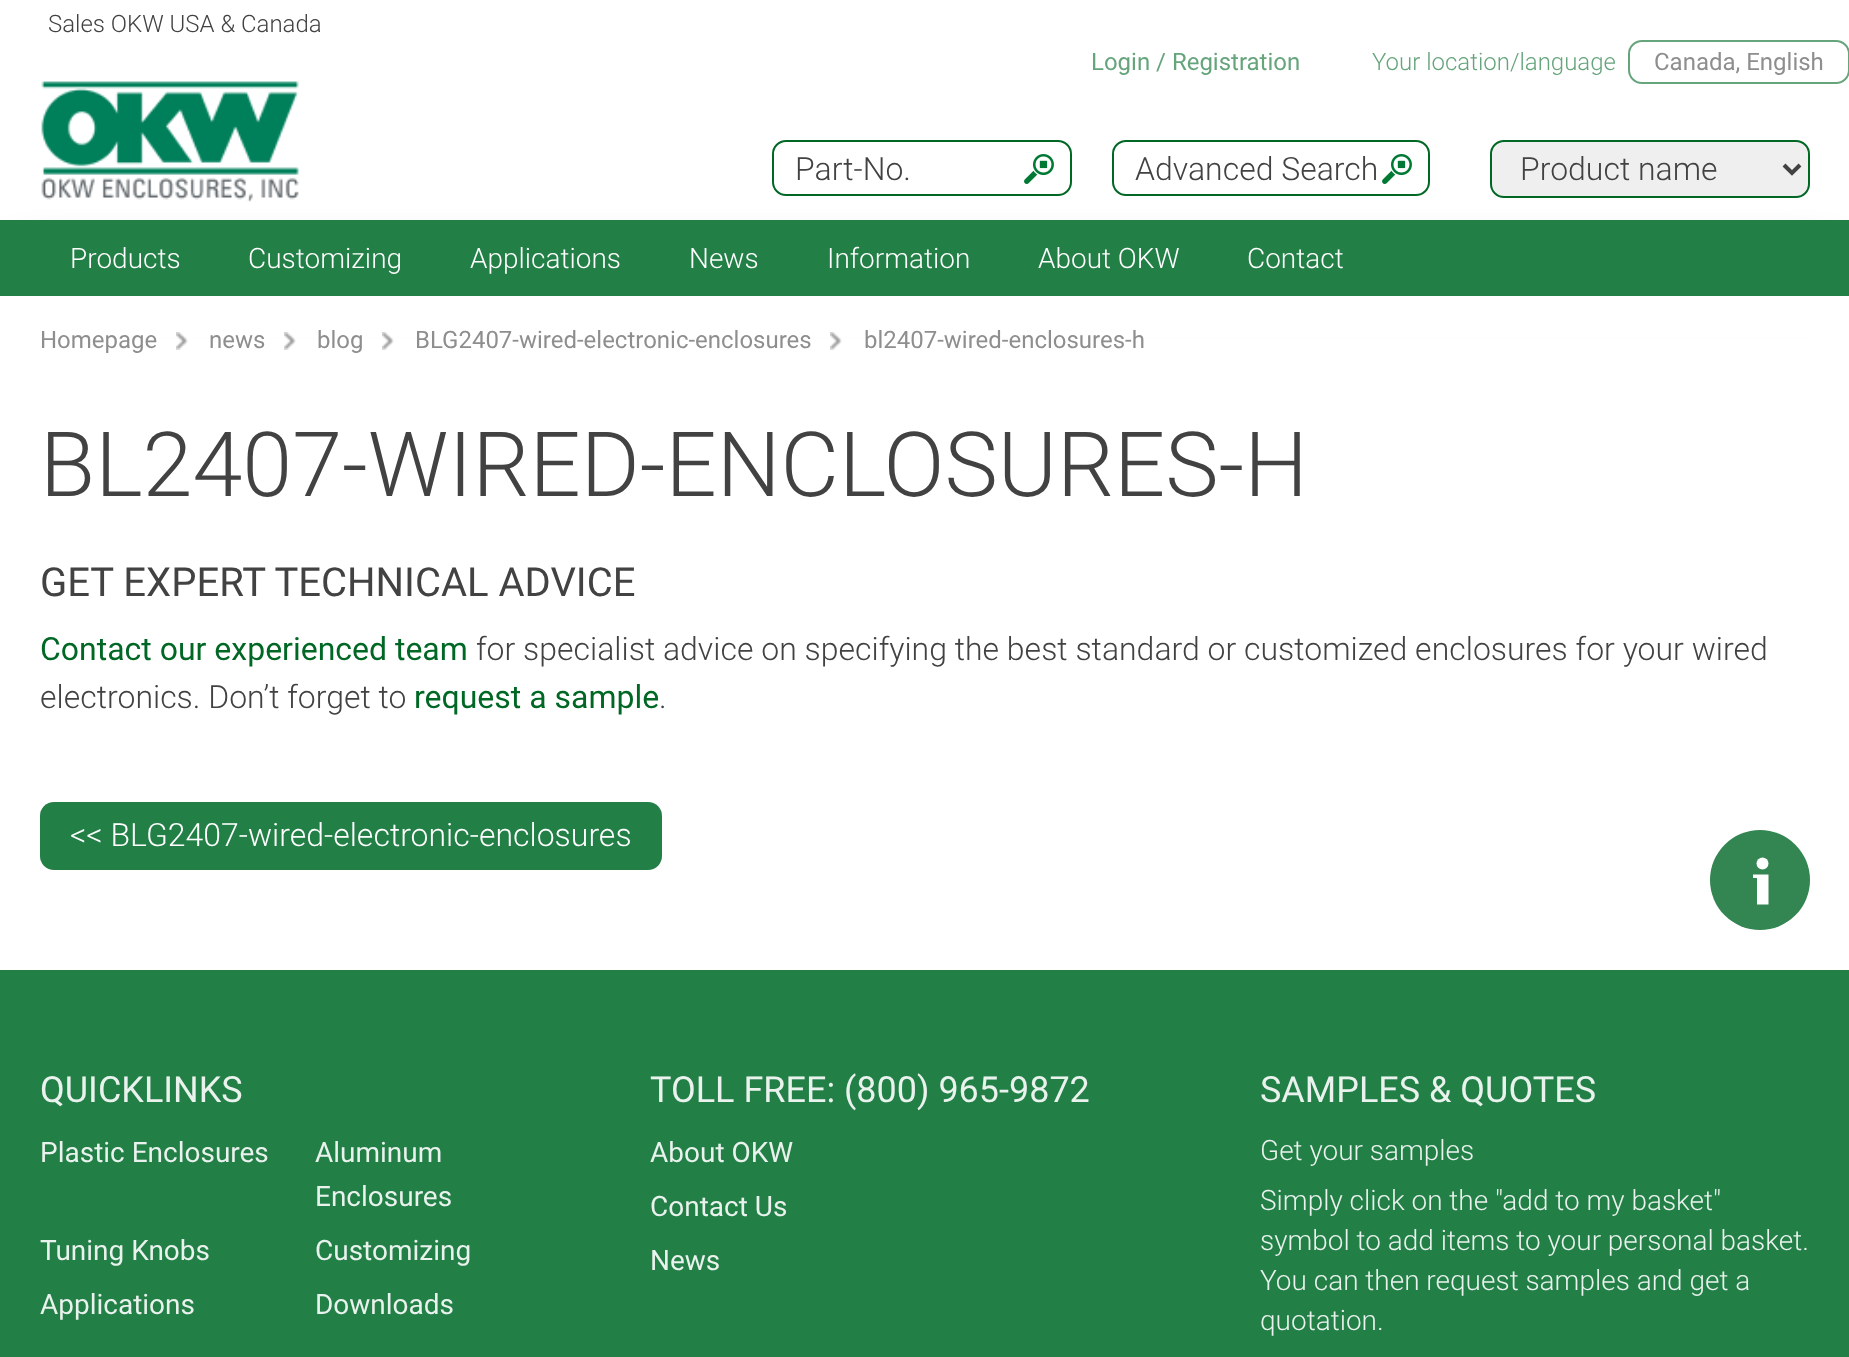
async function draw(canvas) {
  canvas.width = 1849;
  canvas.height = 1357;
  const ctx = canvas.getContext('2d');
  ctx.miterLimit = 4;
  ctx.fontKerning = 'normal';
  function label(s, x, y, font, color) {
    ctx.font = font;
    ctx.fillStyle = color;
    ctx.fillText(s, x, y);
  }
  function rect(x, y, w, h, color) {
    ctx.fillStyle = color;
    ctx.fillRect(x, y, w, h);
  }
  function roundedRect(x, y, w, h, r, color) {
    ctx.fillStyle = color;
    ctx.beginPath();
    ctx.roundRect(x, y, w, h, r);
    ctx.fill();
  }
  async function image(src, x, y, w, h) {
    const img = new Image();
    img.src = src;
    await img.decode();
    ctx.drawImage(img, x, y, w, h);
  }
  let path;

  rect(0, 0, 1849, 1357, '#fff');
  label('Sales OKW USA & Canada', 48, 32, '300 24px Roboto', '#424242');
  ctx.fillStyle = '#000000bf';
  ctx.filter = 'blur(22px)';
  ctx.beginPath();
  ctx.rect(24, 260, 1802, 28);
  ctx.fill();
  ctx.filter = 'none';
  await image('assets/img1.png', 41, 81, 258, 121);
  label('Login / Registration', 1091, 70, '24px Roboto', '#66a47c');
  label('Your location/language', 1372, 70, '300 24px Roboto', '#66a47c');
  ctx.beginPath();
  ctx.roundRect(1629, 41, 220, 42, 13);
  ctx.strokeStyle = '#66a47c';
  ctx.lineWidth = 2;
  ctx.stroke();
  label('Canada, English', 1654, 70, '24px Roboto', '#8e8e8e');
  await image('assets/img2.png', 1024, 154, 30, 30);
  ctx.beginPath();
  ctx.roundRect(773, 141, 298, 54, 13);
  ctx.strokeStyle = '#006725';
  ctx.stroke();
  label('Part-No.', 795, 180, '300 32px Roboto', '#424242');
  await image('assets/img2.png', 1382, 154, 30, 30);
  ctx.beginPath();
  ctx.roundRect(1113, 141, 316, 54, 13);
  ctx.stroke();
  label('Advanced Search', 1135, 180, '300 32px Roboto', '#424242');
  ctx.fillStyle = '#efefef';
  ctx.beginPath();
  ctx.roundRect(1491, 141, 318, 56, 13);
  ctx.fill();
  ctx.stroke();
  path = new Path2D('M1784 165L1792 173L1800 165');
  ctx.strokeStyle = '#424242';
  ctx.lineWidth = 4;
  ctx.stroke(path);
  label('Product name', 1520, 180, '300 32px Roboto', '#424242');
  rect(0, 220, 1849, 76, '#227f46');
  label('Products', 70, 268, '300 28px Roboto', '#fff');
  label('Customizing', 248, 268, '300 28px Roboto', '#fff');
  label('Applications', 470, 268, '300 28px Roboto', '#fff');
  label('News', 689, 268, '300 28px Roboto', '#fff');
  label('Information', 827, 268, '300 28px Roboto', '#fff');
  label('About OKW', 1038, 268, '300 28px Roboto', '#fff');
  label('Contact', 1247, 268, '300 28px Roboto', '#fff');
  rect(0, 296, 1849, 41, '#fff');
  await image('assets/img3.png', 176, 332, 12, 18);
  label('Homepage', 40, 348, '24px Roboto', '#8e8e8e');
  await image('assets/img3.png', 284, 332, 12, 18);
  label('news', 209, 348, '24px Roboto', '#8e8e8e');
  await image('assets/img3.png', 382, 332, 12, 18);
  label('blog', 317, 348, '24px Roboto', '#8e8e8e');
  await image('assets/img3.png', 830, 332, 12, 18);
  label('BLG2407-wired-electronic-enclosures', 415, 348, '24px Roboto', '#8e8e8e');
  label('bl2407-wired-enclosures-h', 864, 348, '24px Roboto', '#8e8e8e');
  label('BL2407-WIRED-ENCLOSURES-H', 40, 496, '300 90px Roboto', '#424242');
  label('GET EXPERT TECHNICAL ADVICE', 40, 596, '40px Roboto', '#424242');
  label('Contact our experienced team', 40, 660, '32px Roboto', '#006725');
  label('for specialist advice on specifying the best standard or customized enclosures for your wired', 476, 660, '300 32px Roboto', '#424242');
  label('electronics. Don’t forget to', 40, 708, '300 32px Roboto', '#424242');
  label('request a sample', 414, 708, '32px Roboto', '#006725');
  label('.', 659, 708, '300 32px Roboto', '#424242');
  roundedRect(40, 802, 622, 68, 14, '#227f46');
  label('<< BLG2407-wired-electronic-enclosures', 70, 846, '300 32px Roboto', '#fff');
  ctx.fillStyle = '#338551';
  ctx.beginPath();
  ctx.arc(1760, 880, 50, 0, 2 * Math.PI);
  ctx.fill();
  ctx.fillStyle = '#fff';
  path = new Path2D('M1757 874.5H1753V878H1757V904.5H1768.5V874.5Z');
  ctx.fill(path);
  ctx.beginPath();
  ctx.arc(1762.5, 863.5, 6, 0, 2 * Math.PI);
  ctx.fill();
  rect(0, 970, 1849, 387, '#227f46');
  label('QUICKLINKS', 40, 1102, '36px Roboto', '#e9f2ed');
  label('Plastic Enclosures', 40, 1162, '28px Roboto', '#e9f2ed');
  label('Aluminum', 315, 1162, '28px Roboto', '#e9f2ed');
  label('Enclosures', 315, 1206, '28px Roboto', '#e9f2ed');
  label('Tuning Knobs', 40, 1260, '28px Roboto', '#e9f2ed');
  label('Customizing', 315, 1260, '28px Roboto', '#e9f2ed');
  label('Applications', 40, 1314, '28px Roboto', '#e9f2ed');
  label('Downloads', 315, 1314, '28px Roboto', '#e9f2ed');
  label('TOLL FREE: (800) 965-9872', 650, 1102, '36px Roboto', '#e9f2ed');
  label('About OKW', 650, 1162, '28px Roboto', '#e9f2ed');
  label('Contact Us', 650, 1216, '28px Roboto', '#e9f2ed');
  label('News', 650, 1270, '28px Roboto', '#e9f2ed');
  label('SAMPLES & QUOTES', 1260, 1102, '36px Roboto', '#e9f2ed');
  label('Get your samples', 1260, 1160, '300 28px Roboto', '#e9f2ed');
  label('Simply click on the "add to my basket"', 1260, 1210, '300 28px Roboto', '#e9f2ed');
  label('symbol to add items to your personal basket.', 1260, 1250, '300 28px Roboto', '#e9f2ed');
  label('You can then request samples and get a', 1260, 1290, '300 28px Roboto', '#e9f2ed');
  label('quotation.', 1260, 1330, '300 28px Roboto', '#e9f2ed');
}

draw(document.querySelector('canvas'));
